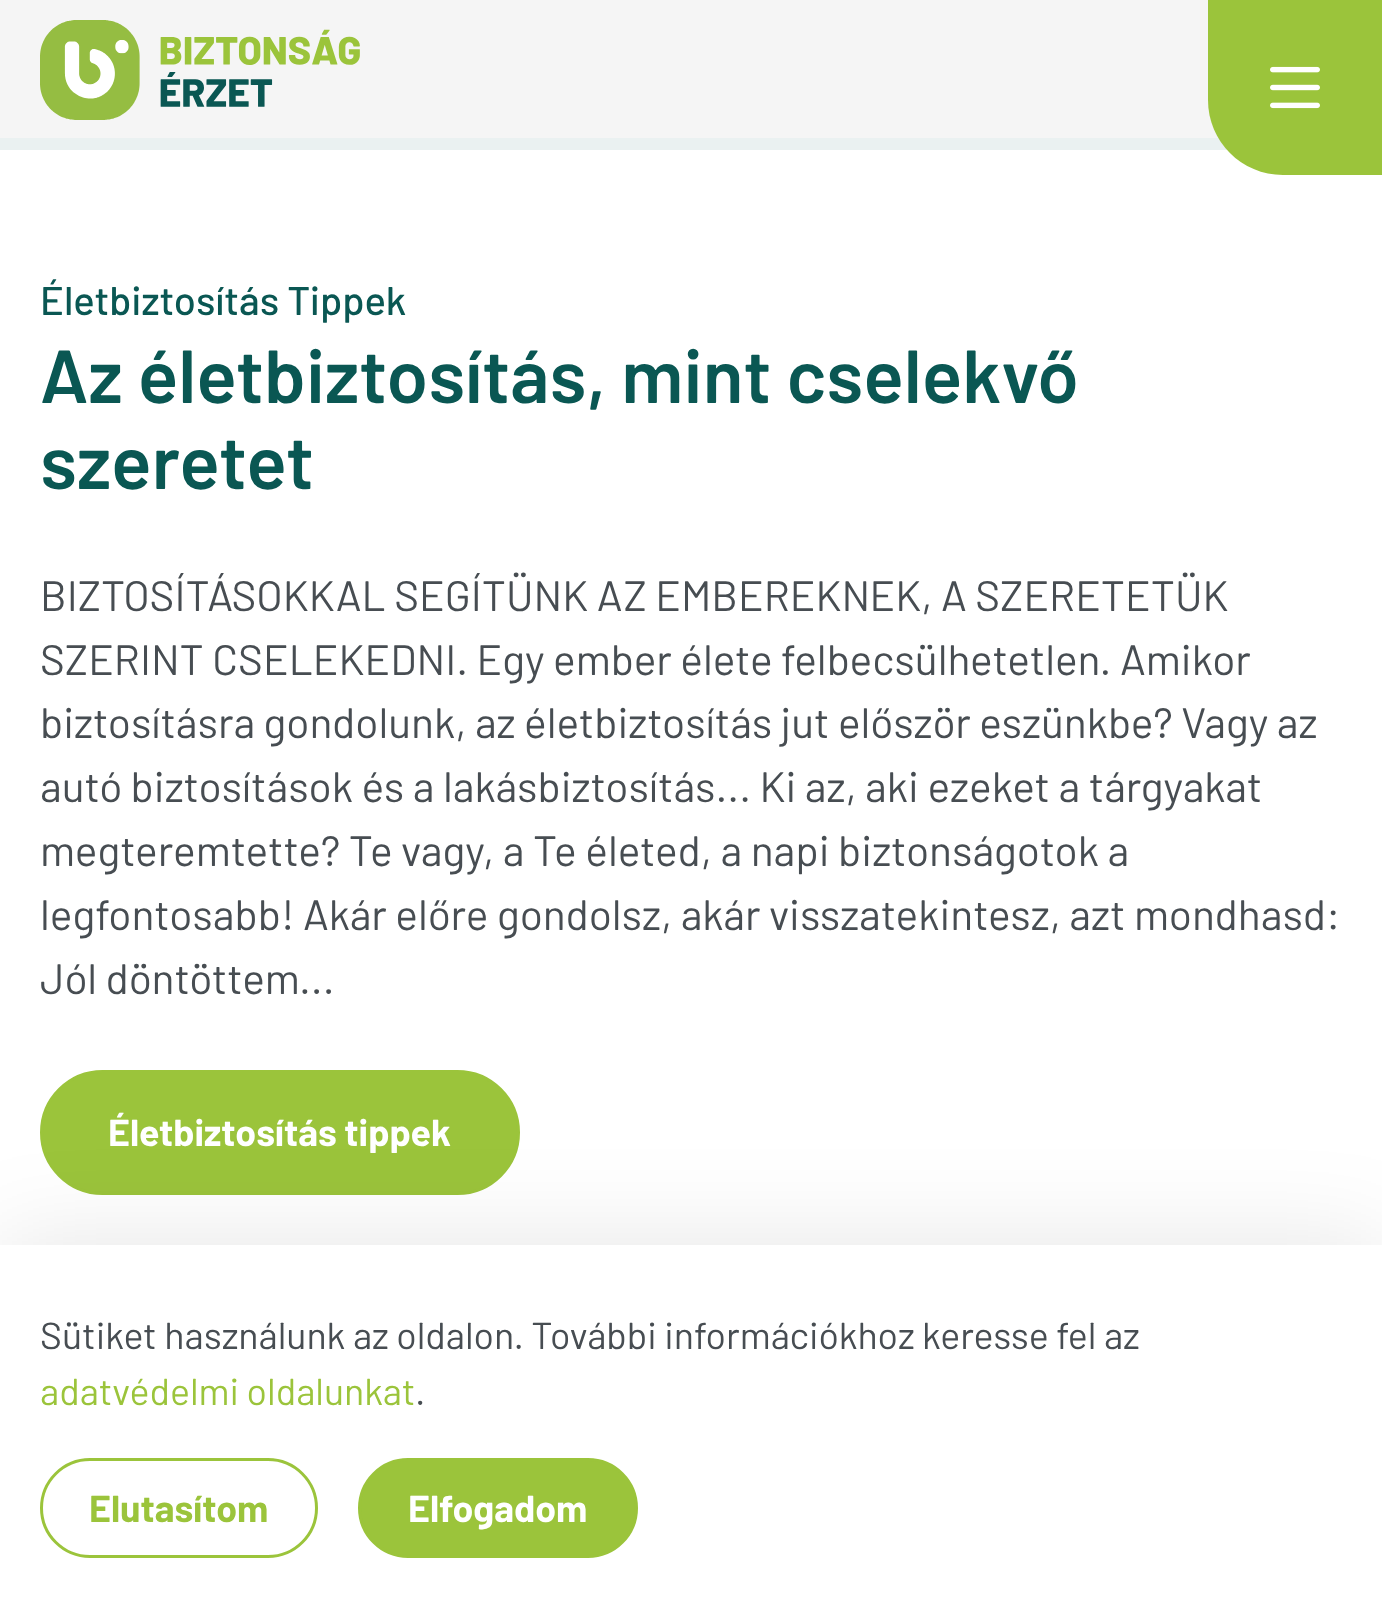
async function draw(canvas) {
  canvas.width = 1382;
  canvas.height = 1617;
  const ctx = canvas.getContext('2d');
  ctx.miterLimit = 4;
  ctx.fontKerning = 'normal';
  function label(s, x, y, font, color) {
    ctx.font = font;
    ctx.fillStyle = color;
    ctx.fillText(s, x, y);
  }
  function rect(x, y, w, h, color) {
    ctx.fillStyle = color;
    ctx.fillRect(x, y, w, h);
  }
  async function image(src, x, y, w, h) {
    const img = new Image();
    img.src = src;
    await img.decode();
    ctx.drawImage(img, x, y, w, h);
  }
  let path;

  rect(0, 0, 1382, 1617, '#fff');
  rect(0, 0, 1219, 138, '#f5f5f5');
  rect(0, 138, 1228, 12, '#eaf1f1');
  await image('assets/img1.png', 40, 20, 320, 100);
  ctx.fillStyle = '#9bc43b';
  path = new Path2D('M1208 0H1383V175H1283C1241.5 175 1208 141.5 1208 100Z');
  ctx.fill(path);
  await image('assets/img2.png', 1270, 66, 50, 43);
  label('Életbiztosítás Tippek', 40, 315, '500 40px Barlow', '#0a5753');
  label('Az életbiztosítás, mint cselekvő', 40, 403, '600 75px Barlow', '#0a5753');
  label('szeretet', 40, 489, '600 75px Barlow', '#0a5753');
  label('BIZTOSÍTÁSOKKAL SEGÍTÜNK AZ EMBEREKNEK, A SZERETETÜK', 40, 611, '42.5px Barlow', '#474d52');
  label('SZERINT CSELEKEDNI. Egy ember élete felbecsülhetetlen. Amikor', 40, 675, '42.5px Barlow', '#474d52');
  label('biztosításra gondolunk, az életbiztosítás jut először eszünkbe? Vagy az', 40, 738, '42.5px Barlow', '#474d52');
  label('autó biztosítások és a lakásbiztosítás... Ki az, aki ezeket a tárgyakat', 40, 802, '42.5px Barlow', '#474d52');
  label('megteremtette? Te vagy, a Te életed, a napi biztonságotok a', 40, 866, '42.5px Barlow', '#474d52');
  label('legfontosabb! Akár előre gondolsz, akár visszatekintesz, azt mondhasd:', 40, 930, '42.5px Barlow', '#474d52');
  label('Jól döntöttem...', 40, 994, '42.5px Barlow', '#474d52');
  ctx.fillStyle = '#9bc43b';
  ctx.beginPath();
  ctx.roundRect(41.5, 1071.5, 477, 122, 61);
  ctx.fill();
  ctx.strokeStyle = '#9bc43b';
  ctx.lineWidth = 3;
  ctx.stroke();
  label('Életbiztosítás tippek', 108, 1146, 'bold 37.5px Barlow', '#fff');
  ctx.fillStyle = '#0000001a';
  ctx.filter = 'blur(50px)';
  ctx.beginPath();
  ctx.rect(0, 1245, 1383, 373);
  ctx.fill();
  ctx.filter = 'none';
  rect(0, 1245, 1382, 372, '#fff');
  label('Sütiket használunk az oldalon. További információkhoz keresse fel az', 40, 1349, '37.5px Barlow', '#474d52');
  label('adatvédelmi oldalunkat', 40, 1405, '37.5px Barlow', '#9bc43b');
  label('.', 415, 1405, '37.5px Barlow', '#474d52');
  ctx.beginPath();
  ctx.roundRect(41.5, 1459.5, 275, 97, 48.5);
  ctx.stroke();
  label('Elutasítom', 89, 1522, 'bold 37.5px Barlow', '#9bc43b');
  ctx.beginPath();
  ctx.roundRect(359.5, 1459.5, 277, 97, 48.5);
  ctx.fill();
  ctx.stroke();
  label('Elfogadom', 408, 1522, 'bold 37.5px Barlow', '#fff');
}

draw(document.querySelector('canvas'));
